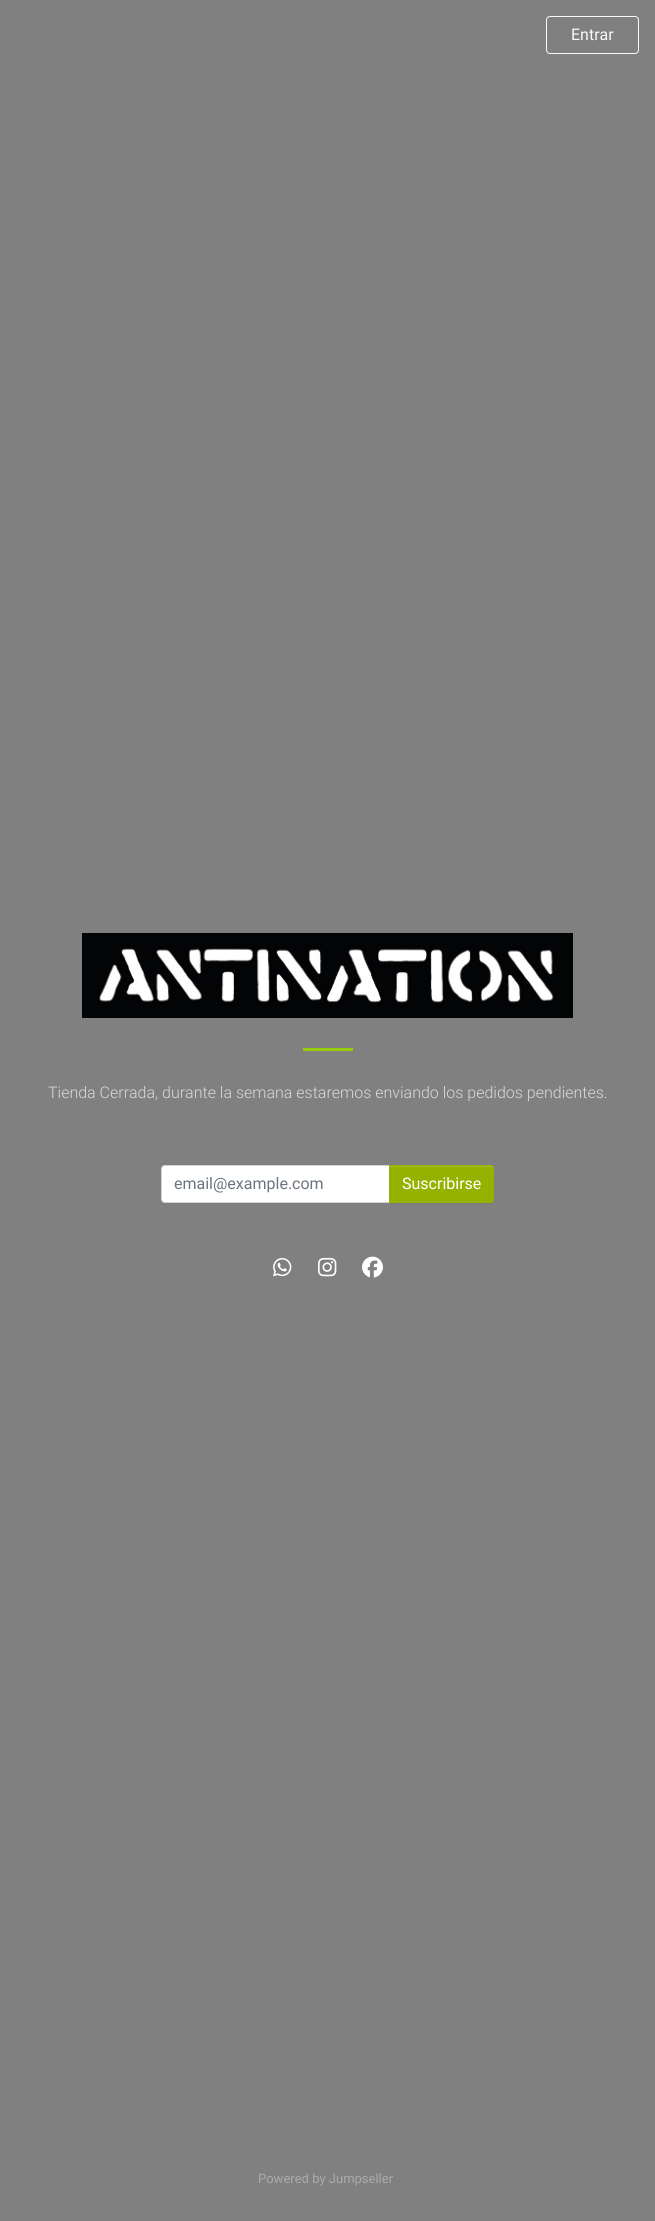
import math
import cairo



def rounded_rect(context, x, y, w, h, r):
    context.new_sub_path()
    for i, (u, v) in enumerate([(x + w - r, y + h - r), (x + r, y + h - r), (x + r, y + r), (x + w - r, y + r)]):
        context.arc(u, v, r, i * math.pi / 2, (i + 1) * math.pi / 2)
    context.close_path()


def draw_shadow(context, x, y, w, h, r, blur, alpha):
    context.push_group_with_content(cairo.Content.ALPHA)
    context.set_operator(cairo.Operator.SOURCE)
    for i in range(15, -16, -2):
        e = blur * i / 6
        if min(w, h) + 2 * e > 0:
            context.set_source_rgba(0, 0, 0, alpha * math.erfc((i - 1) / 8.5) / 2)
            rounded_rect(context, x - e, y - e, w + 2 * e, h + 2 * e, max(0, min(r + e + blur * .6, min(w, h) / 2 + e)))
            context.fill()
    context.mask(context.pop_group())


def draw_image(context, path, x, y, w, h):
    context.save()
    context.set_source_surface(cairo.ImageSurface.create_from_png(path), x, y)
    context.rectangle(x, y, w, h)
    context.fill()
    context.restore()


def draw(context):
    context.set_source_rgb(128 / 255, 128 / 255, 128 / 255)
    context.paint()
    rounded_rect(context, 546.5, 16.5, 92, 37, 3.5)
    context.set_source_rgb(248 / 255, 249 / 255, 250 / 255)
    context.set_line_width(1)
    context.stroke()
    draw_image(context, "images/1.png", 82, 933, 491, 85)
    context.set_source_rgb(153 / 255, 204 / 255, 0)
    context.rectangle(303, 1048, 50, 3)
    context.fill()
    context.set_source_rgb(1, 1, 1)
    context.new_path()
    context.move_to(165, 1165.5)
    context.line_to(389.5, 1165.5)
    context.line_to(389.5, 1202.5)
    context.line_to(165, 1202.5)
    context.curve_to(163, 1202.5, 161.5, 1201, 161.5, 1199)
    context.line_to(161.5, 1169)
    context.curve_to(161.5, 1167, 163, 1165.5, 165, 1165.5)
    context.close_path()
    context.fill_preserve()
    context.set_source_rgb(206 / 255, 212 / 255, 218 / 255)
    context.stroke()
    context.set_source_rgb(0, 0, 0)
    draw_shadow(context, 389, 1166, 105, 38, 4, 0.5, 0.07)
    context.set_source_rgb(149 / 255, 178 / 255, 0)
    context.new_path()
    context.move_to(389, 1165)
    context.line_to(490, 1165)
    context.curve_to(492, 1165, 494, 1167, 494, 1169)
    context.line_to(494, 1199)
    context.curve_to(494, 1201, 492, 1203, 490, 1203)
    context.line_to(389, 1203)
    context.close_path()
    context.fill()
    context.set_source_rgb(165 / 255, 190 / 255, 38 / 255)
    context.new_path()
    context.move_to(390, 1167)
    context.line_to(490, 1167)
    context.curve_to(492, 1167, 493, 1168, 493, 1170)
    context.line_to(493, 1169)
    context.curve_to(493, 1167, 492, 1166, 490, 1166)
    context.line_to(390, 1166)
    context.close_path()
    context.fill()
    context.new_path()
    context.move_to(389.5, 1165.5)
    context.line_to(490, 1165.5)
    context.curve_to(492, 1165.5, 493.5, 1167, 493.5, 1169)
    context.line_to(493.5, 1199)
    context.curve_to(493.5, 1201, 492, 1202.5, 490, 1202.5)
    context.line_to(389.5, 1202.5)
    context.close_path()
    context.set_source_rgb(149 / 255, 178 / 255, 0)
    context.stroke()
    draw_image(context, "images/2.png", 273, 1258, 19, 19)
    draw_image(context, "images/3.png", 318, 1257, 19, 20)
    draw_image(context, "images/4.png", 362, 1256, 21, 22)
    context.select_font_face("Roboto")
    context.set_font_size(16)
    context.set_source_rgb(248 / 255, 249 / 255, 250 / 255)
    context.move_to(571, 40)
    context.show_text("Entrar")
    context.select_font_face("Roboto Light")
    context.set_source_rgb(217 / 255, 217 / 255, 217 / 255)
    context.move_to(48, 1098)
    context.show_text("Tienda Cerrada, durante la semana estaremos enviando los pedidos pendientes.")
    context.select_font_face("Roboto")
    context.set_source_rgb(108 / 255, 117 / 255, 125 / 255)
    context.move_to(174, 1189)
    context.show_text("email@example.com")
    context.set_source_rgb(1, 1, 1)
    context.move_to(402, 1189)
    context.show_text("Suscribirse")
    context.set_font_size(13)
    context.set_source_rgb(170 / 255, 170 / 255, 170 / 255)
    context.move_to(258, 2183)
    context.show_text("Powered by Jumpseller")


surface = cairo.ImageSurface(cairo.Format.RGB24, 655, 2221)
context = cairo.Context(surface)
options = cairo.FontOptions()
options.set_hint_metrics(cairo.HintMetrics.OFF)
options.set_hint_style(cairo.HintStyle.NONE)
context.set_font_options(options)
context.set_miter_limit(4)
draw(context)
surface.write_to_png("out.png")
